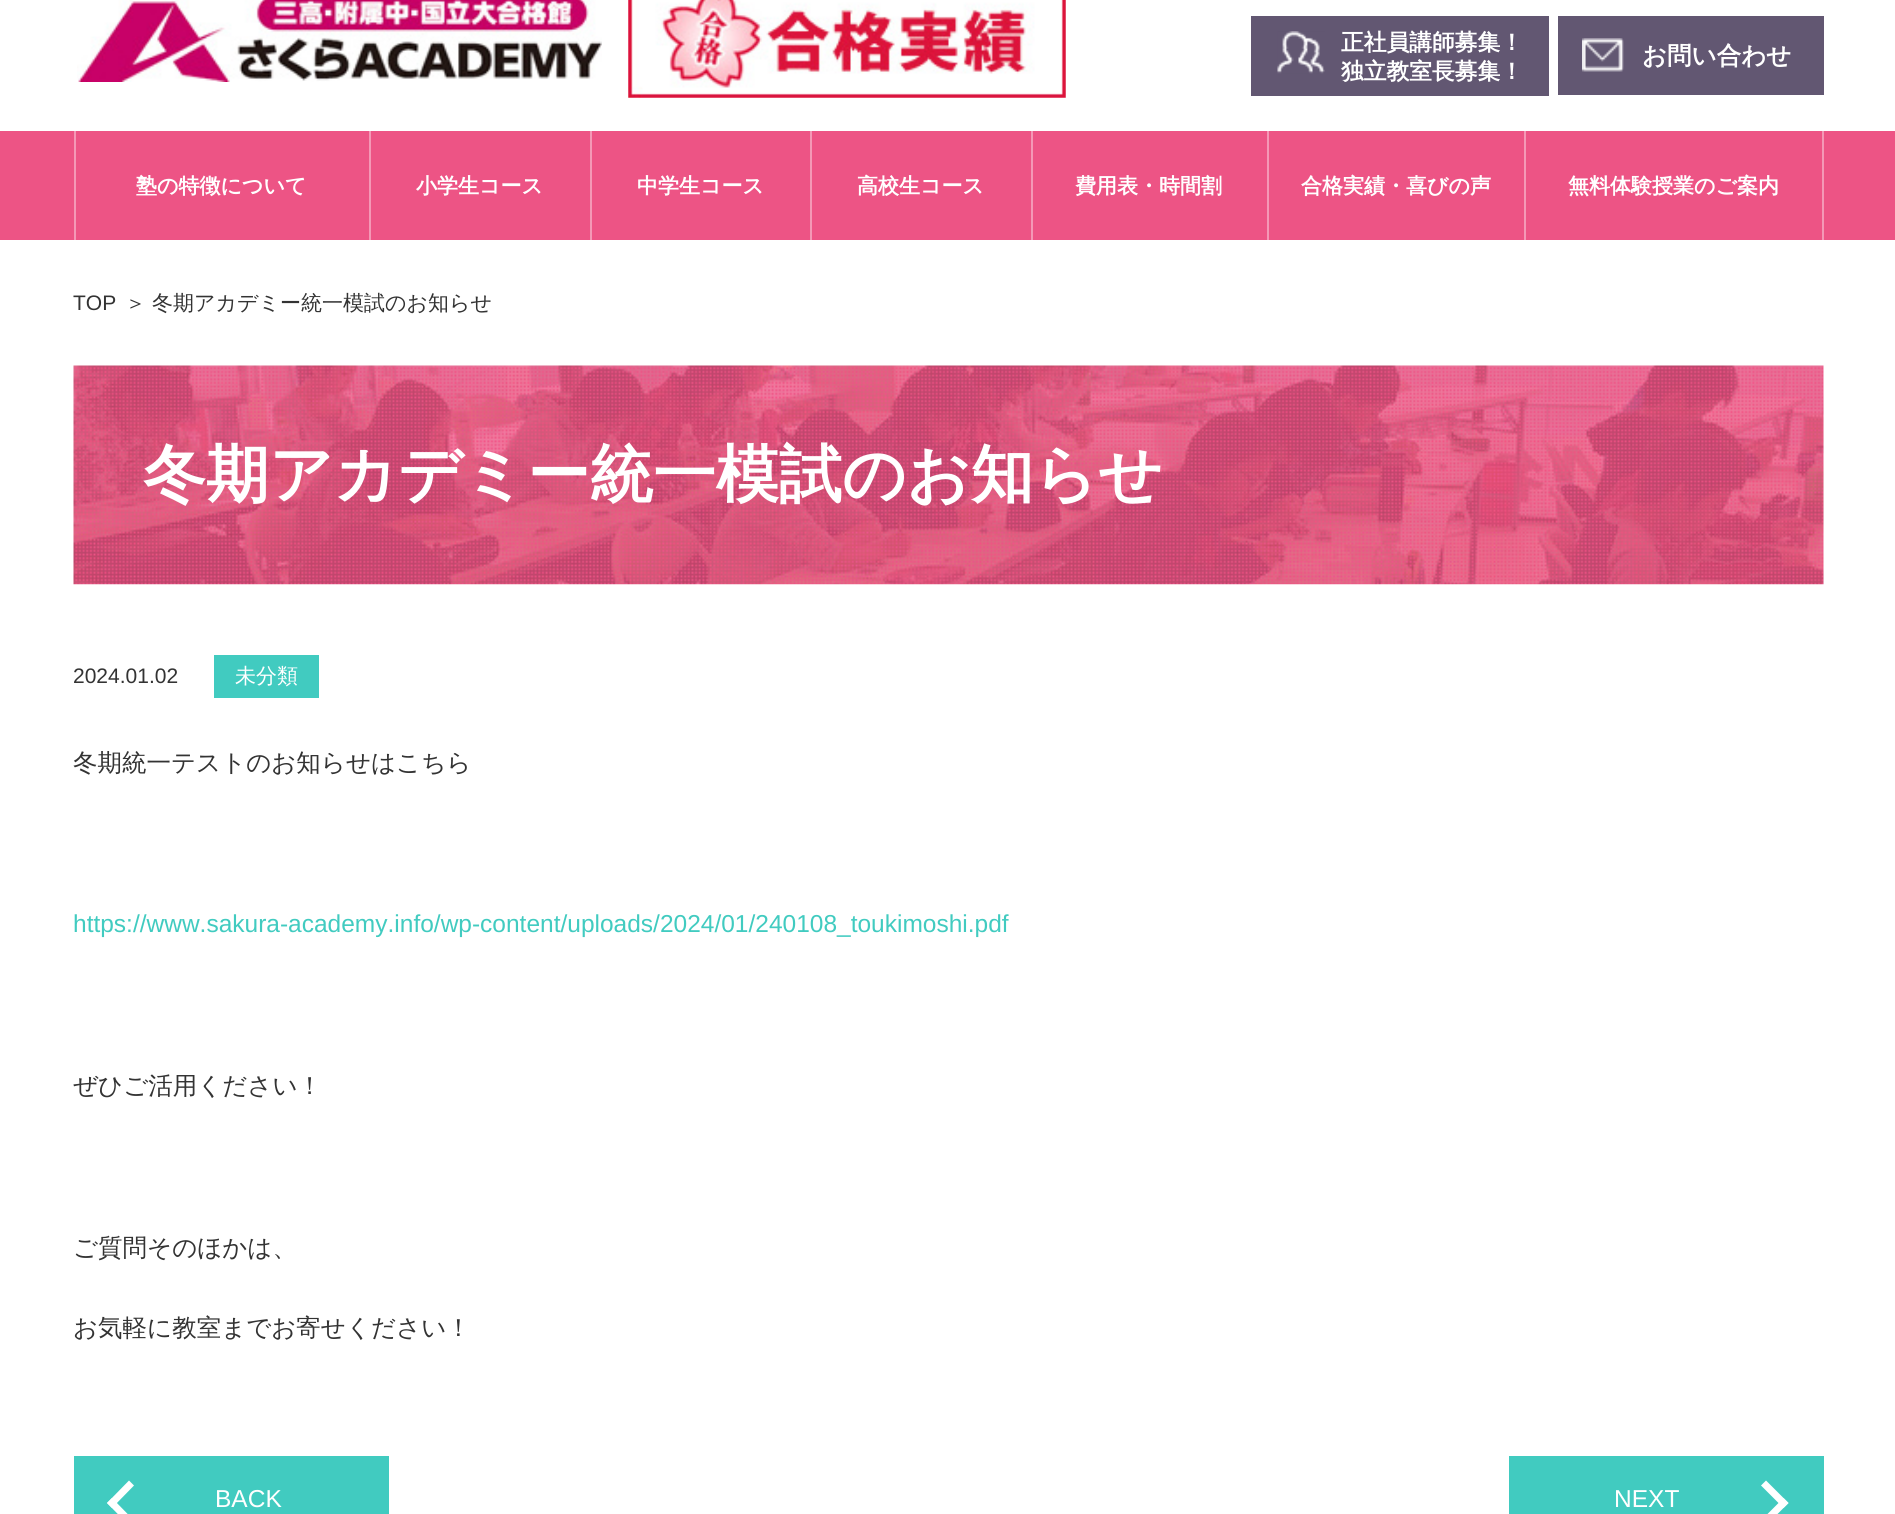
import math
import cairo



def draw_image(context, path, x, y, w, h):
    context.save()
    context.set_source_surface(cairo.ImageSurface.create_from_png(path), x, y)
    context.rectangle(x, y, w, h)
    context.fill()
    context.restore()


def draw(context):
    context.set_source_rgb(1, 1, 1)
    context.paint()
    draw_image(context, "images/1.png", 77, 0, 525, 82)
    draw_image(context, "images/2.png", 628, 0, 438, 98)
    context.set_source_rgb(98 / 255, 87 / 255, 114 / 255)
    context.rectangle(1251, 16, 298, 80)
    context.fill()
    draw_image(context, "images/3.png", 1277, 31, 48, 43)
    context.rectangle(1558, 16, 266, 79)
    context.fill()
    draw_image(context, "images/4.png", 1582, 38, 42, 34)
    context.set_source_rgb(237 / 255, 84 / 255, 133 / 255)
    context.rectangle(0, 131, 1895, 109)
    context.fill()
    context.set_source_rgb(244 / 255, 152 / 255, 182 / 255)
    context.rectangle(74, 131, 2, 109)
    context.fill()
    context.rectangle(369, 131, 2, 109)
    context.fill()
    context.rectangle(590, 131, 2, 109)
    context.fill()
    context.rectangle(810, 131, 2, 109)
    context.fill()
    context.rectangle(1031, 131, 2, 109)
    context.fill()
    context.rectangle(1267, 131, 2, 109)
    context.fill()
    context.rectangle(1524, 131, 2, 109)
    context.fill()
    context.rectangle(1822, 131, 2, 109)
    context.fill()
    draw_image(context, "images/5.png", 73, 365, 1751, 220)
    context.set_source_rgb(65 / 255, 203 / 255, 192 / 255)
    context.rectangle(214, 655, 105, 43)
    context.fill()
    context.rectangle(74, 1456, 315, 58)
    context.fill()
    context.set_source_rgb(1, 1, 1)
    context.new_path()
    context.move_to(107, 1503)
    context.line_to(129, 1480.5)
    context.line_to(134, 1485.5)
    context.line_to(112, 1508)
    context.close_path()
    context.fill()
    context.new_path()
    context.move_to(107, 1503)
    context.line_to(112, 1498)
    context.line_to(134, 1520.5)
    context.line_to(129, 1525.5)
    context.close_path()
    context.fill()
    context.set_source_rgb(65 / 255, 203 / 255, 192 / 255)
    context.rectangle(1509, 1456, 315, 58)
    context.fill()
    context.set_source_rgb(1, 1, 1)
    context.new_path()
    context.move_to(1788.5, 1503)
    context.line_to(1766, 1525.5)
    context.line_to(1761, 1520.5)
    context.line_to(1783.5, 1498)
    context.close_path()
    context.fill()
    context.new_path()
    context.move_to(1788.5, 1503)
    context.line_to(1783.5, 1508)
    context.line_to(1761, 1485.5)
    context.line_to(1766, 1480.5)
    context.close_path()
    context.fill()
    context.select_font_face("WenQuanYi Zen Hei", cairo.FontSlant.NORMAL, cairo.FontWeight.BOLD)
    context.set_font_size(22.75)
    context.move_to(1341, 50)
    context.show_text("正社員講師募集！")
    context.move_to(1341, 79)
    context.show_text("独立教室長募集！")
    context.set_font_size(24.5)
    context.move_to(1642, 64)
    context.show_text("お問い合わせ")
    context.set_font_size(21)
    context.move_to(136, 193)
    context.show_text("塾の特徴について")
    context.move_to(416, 193)
    context.show_text("小学生コース")
    context.move_to(637, 193)
    context.show_text("中学生コース")
    context.move_to(857, 193)
    context.show_text("高校生コース")
    context.move_to(1075, 193)
    context.show_text("費用表・時間割")
    context.move_to(1301, 193)
    context.show_text("合格実績・喜びの声")
    context.move_to(1568, 193)
    context.show_text("無料体験授業のご案内")
    context.select_font_face("Liberation Sans")
    context.set_source_rgb(51 / 255, 51 / 255, 51 / 255)
    context.move_to(73, 310)
    context.show_text("TOP")
    context.select_font_face("WenQuanYi Zen Hei Medium")
    context.move_to(125, 310)
    context.show_text("＞")
    context.move_to(152, 310)
    context.show_text("冬期アカデミー統一模試のお知らせ")
    context.select_font_face("WenQuanYi Zen Hei", cairo.FontSlant.NORMAL, cairo.FontWeight.BOLD)
    context.set_font_size(63)
    context.set_source_rgb(1, 1, 1)
    context.move_to(143, 496)
    context.show_text("冬期アカデミー統一模試のお知らせ")
    context.select_font_face("Liberation Sans")
    context.set_font_size(21)
    context.set_source_rgb(51 / 255, 51 / 255, 51 / 255)
    context.move_to(73, 683)
    context.show_text("2024.01.02")
    context.select_font_face("WenQuanYi Zen Hei Medium")
    context.set_source_rgb(1, 1, 1)
    context.move_to(235, 683)
    context.show_text("未分類")
    context.set_font_size(24.5)
    context.set_source_rgb(51 / 255, 51 / 255, 51 / 255)
    context.move_to(73, 771)
    context.show_text("冬期統一テストのお知らせはこちら")
    context.select_font_face("Liberation Sans")
    context.set_source_rgb(65 / 255, 203 / 255, 192 / 255)
    context.move_to(73, 932)
    context.show_text("https://www.sakura-academy.info/wp-content/uploads/2024/01/240108_toukimoshi.pdf")
    context.select_font_face("WenQuanYi Zen Hei Medium")
    context.set_source_rgb(51 / 255, 51 / 255, 51 / 255)
    context.move_to(73, 1094)
    context.show_text("ぜひご活用ください！")
    context.move_to(73, 1256)
    context.show_text("ご質問そのほかは、")
    context.move_to(73, 1336)
    context.show_text("お気軽に教室までお寄せください！")
    context.select_font_face("Liberation Sans")
    context.set_source_rgb(1, 1, 1)
    context.move_to(215, 1507)
    context.show_text("BACK")
    context.move_to(1614, 1507)
    context.show_text("NEXT")


surface = cairo.ImageSurface(cairo.Format.RGB24, 1895, 1514)
context = cairo.Context(surface)
options = cairo.FontOptions()
options.set_hint_metrics(cairo.HintMetrics.OFF)
options.set_hint_style(cairo.HintStyle.NONE)
context.set_font_options(options)
context.set_miter_limit(4)
draw(context)
surface.write_to_png("out.png")
